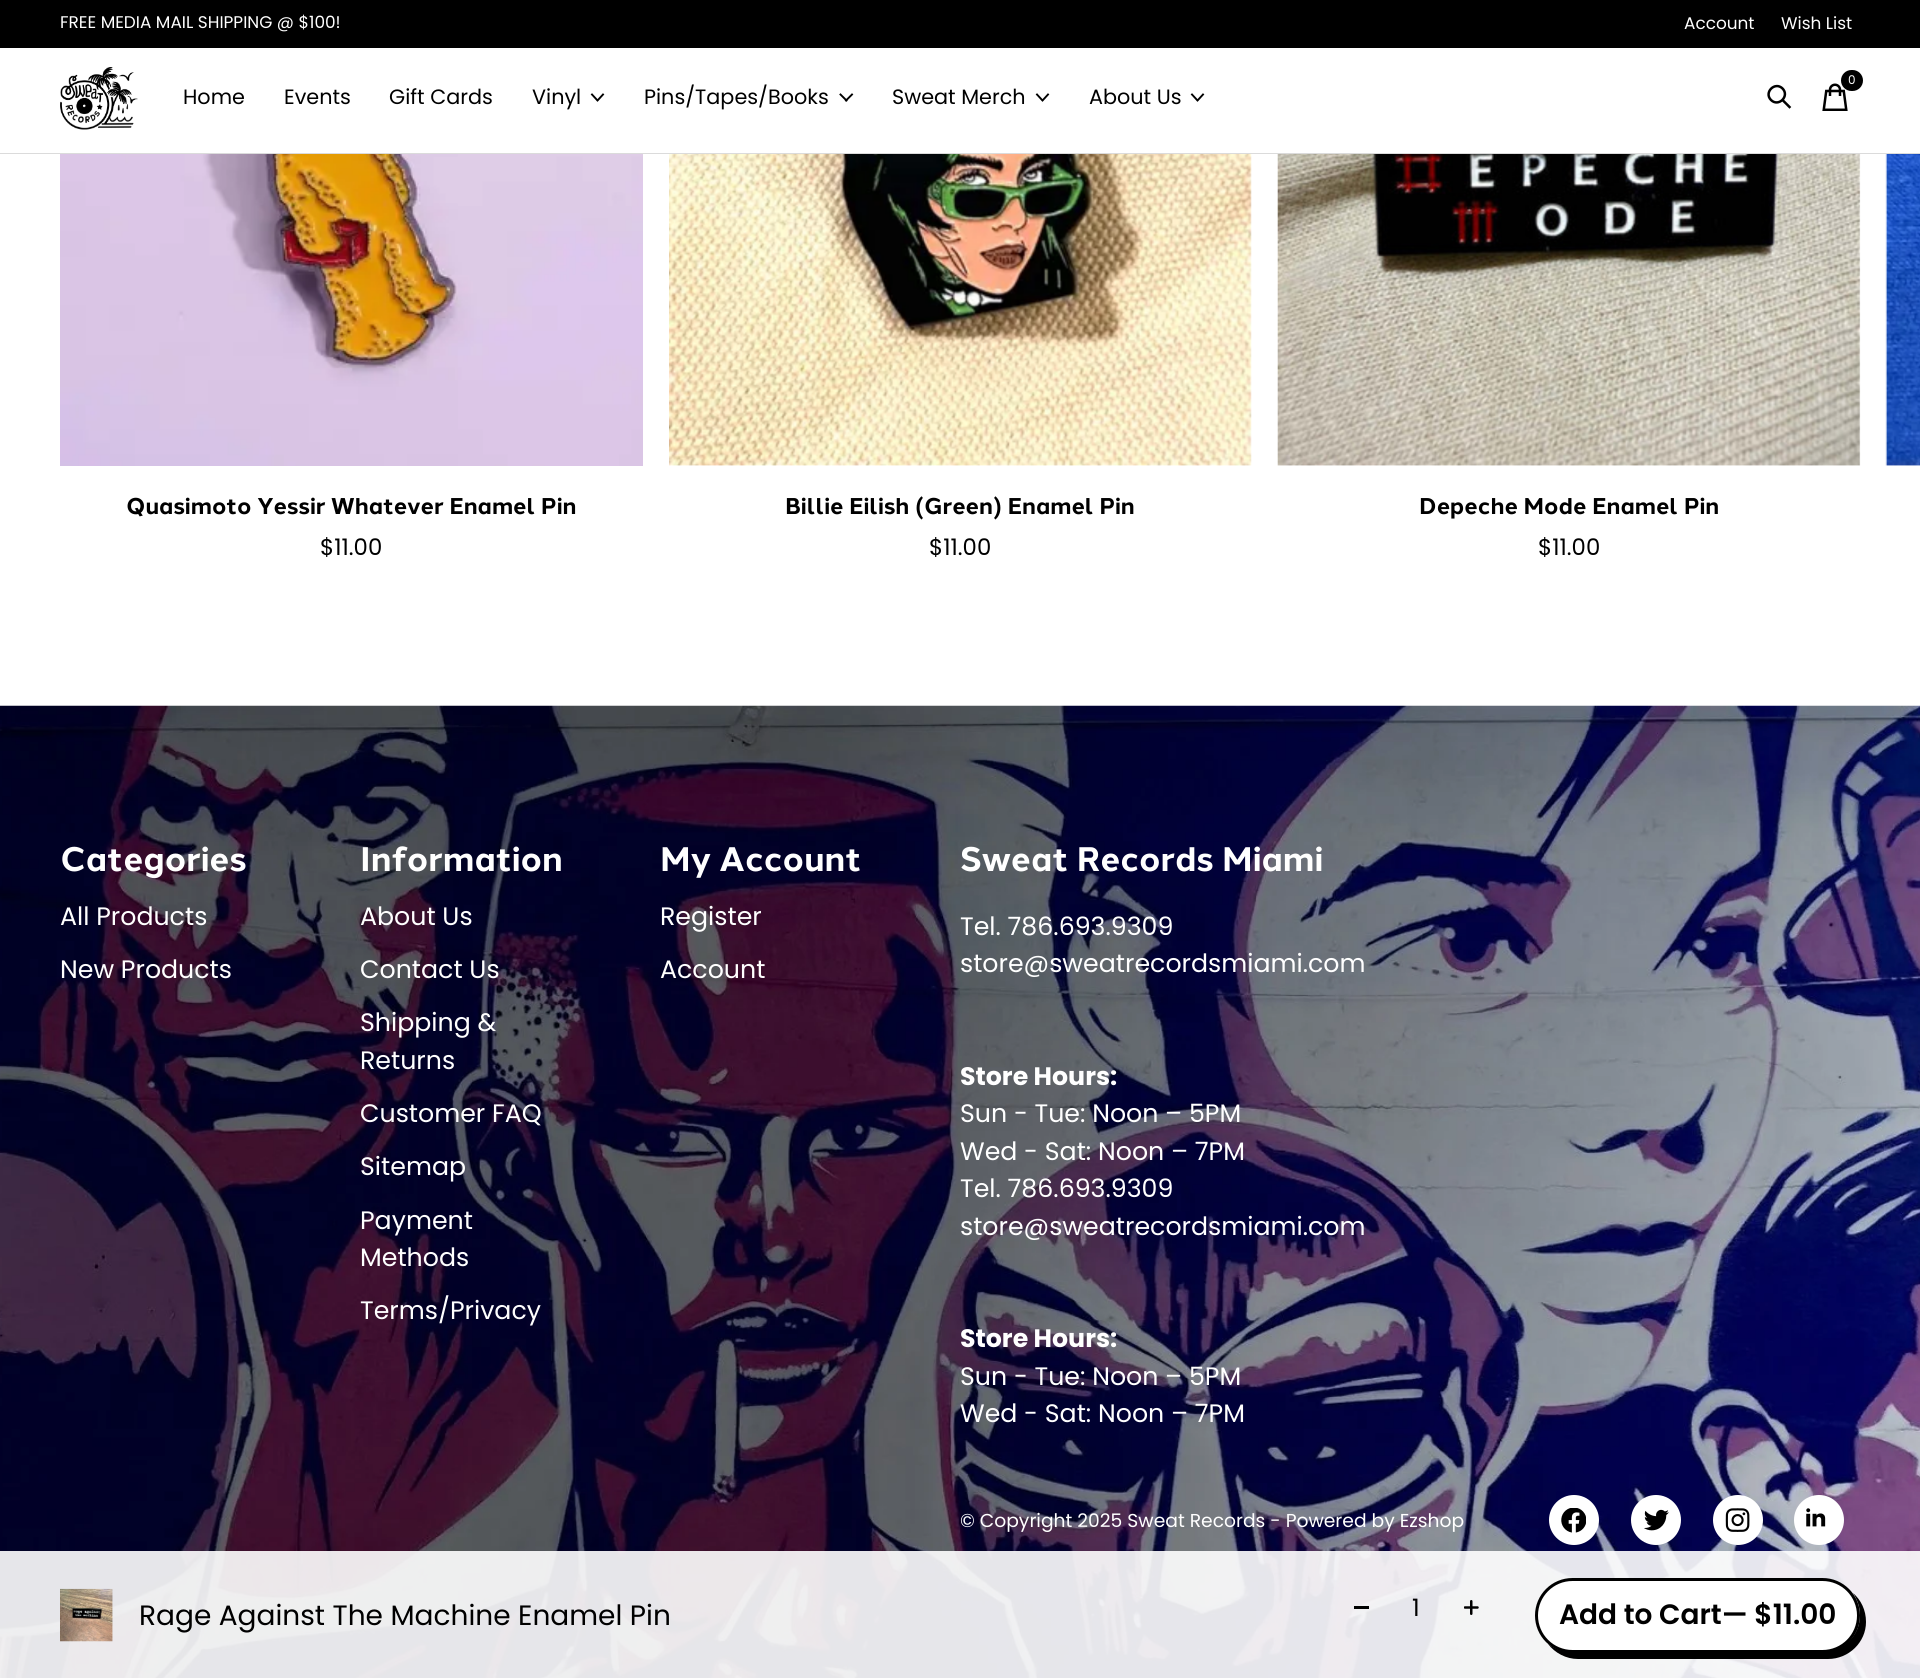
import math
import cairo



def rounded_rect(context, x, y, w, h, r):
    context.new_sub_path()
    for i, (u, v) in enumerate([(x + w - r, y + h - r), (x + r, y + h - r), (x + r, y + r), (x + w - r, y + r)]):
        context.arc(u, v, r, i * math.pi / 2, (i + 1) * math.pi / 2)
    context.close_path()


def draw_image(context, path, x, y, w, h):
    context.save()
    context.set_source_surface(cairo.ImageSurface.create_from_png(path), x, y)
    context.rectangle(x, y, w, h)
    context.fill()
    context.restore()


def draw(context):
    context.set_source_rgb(1, 1, 1)
    context.paint()
    context.set_source_rgb(0, 0, 0)
    context.rectangle(0, 0, 1920, 48)
    context.fill()
    context.set_source_rgb(219 / 255, 219 / 255, 219 / 255)
    context.rectangle(0, 153, 1920, 1)
    context.fill()
    draw_image(context, "images/1.png", 60, 67, 78, 63)
    draw_image(context, "images/2.png", 1822, 83, 26, 28)
    context.set_source_rgb(0, 0, 0)
    rounded_rect(context, 1841, 70, 22, 21, 10.5)
    context.fill()
    context.new_path()
    context.move_to(1782.5, 100)
    context.line_to(1789.5, 107)
    context.move_to(1782.5, 88.5)
    context.curve_to(1790, 96, 1778.5, 107.5, 1771, 100)
    context.curve_to(1763.5, 92.5, 1775, 81, 1782.5, 88.5)
    context.set_line_width(2.5)
    context.set_line_cap(cairo.LineCap.SQUARE)
    context.stroke()
    context.new_path()
    context.move_to(592, 94.5)
    context.line_to(597.5, 100.5)
    context.move_to(603, 94.5)
    context.line_to(597.5, 100.5)
    context.set_line_width(1.9)
    context.stroke()
    context.new_path()
    context.move_to(840.5, 94.5)
    context.line_to(846.5, 100.5)
    context.move_to(852, 94.5)
    context.line_to(846, 100.5)
    context.stroke()
    context.new_path()
    context.move_to(1037, 94.5)
    context.line_to(1042.5, 100.5)
    context.move_to(1048, 94.5)
    context.line_to(1042.5, 100.5)
    context.stroke()
    context.new_path()
    context.move_to(1192, 94.5)
    context.line_to(1197.5, 100.5)
    context.move_to(1203, 94.5)
    context.line_to(1197.5, 100.5)
    context.stroke()
    draw_image(context, "images/3.png", 1885, 154, 35, 312)
    draw_image(context, "images/4.png", 60, 154, 583, 312)
    draw_image(context, "images/5.png", 669, 154, 583, 312)
    draw_image(context, "images/6.png", 1277, 154, 584, 312)
    draw_image(context, "images/7.png", 0, 705, 1920, 973)
    context.set_source_rgb(1, 1, 1)
    context.arc(1574, 1520, 25, 0, 2 * math.pi)
    context.fill()
    draw_image(context, "images/8.png", 1561, 1508, 25, 25)
    context.arc(1656, 1520, 25, 0, 2 * math.pi)
    context.fill()
    draw_image(context, "images/9.png", 1644, 1509, 25, 22)
    context.arc(1738, 1520, 25, 0, 2 * math.pi)
    context.fill()
    draw_image(context, "images/10.png", 1725, 1508, 25, 24)
    context.arc(1819, 1520, 25, 0, 2 * math.pi)
    context.fill()
    draw_image(context, "images/11.png", 1806, 1508, 20, 19)
    context.set_source_rgba(1, 1, 1, 0.9)
    context.rectangle(0, 1551, 1920, 127)
    context.fill()
    draw_image(context, "images/12.png", 60, 1588, 53, 54)
    context.set_source_rgb(0, 0, 0)
    context.rectangle(1354, 1606, 15, 3)
    context.fill()
    draw_image(context, "images/13.png", 1464, 1600, 15, 15)
    context.new_path()
    context.move_to(1548, 1644)
    context.curve_to(1555, 1653, 1566, 1659, 1578, 1659)
    context.line_to(1828, 1659)
    context.curve_to(1849, 1659, 1866, 1642, 1866, 1622)
    context.curve_to(1866, 1610, 1861, 1600, 1853, 1593)
    context.curve_to(1857, 1599, 1860, 1607, 1860, 1615)
    context.curve_to(1860, 1636, 1843, 1652, 1822, 1652)
    context.line_to(1572, 1652)
    context.curve_to(1563, 1652, 1555, 1649, 1548, 1644)
    context.close_path()
    context.fill()
    context.set_source_rgb(1, 1, 1)
    rounded_rect(context, 1536.5, 1579.5, 322, 72, 36)
    context.fill_preserve()
    context.set_source_rgb(0, 0, 0)
    context.set_line_width(3)
    context.set_line_cap(cairo.LineCap.BUTT)
    context.stroke()
    context.select_font_face("Poppins")
    context.set_font_size(16.9)
    context.set_source_rgb(1, 1, 1)
    context.move_to(60, 28)
    context.show_text("FREE MEDIA MAIL SHIPPING @ $100!")
    context.move_to(1684, 29)
    context.show_text("Account")
    context.move_to(1781, 29)
    context.show_text("Wish List")
    context.set_font_size(12)
    context.move_to(1848, 84)
    context.show_text("0")
    context.set_font_size(20.75)
    context.set_source_rgb(0, 0, 0)
    context.move_to(183, 104)
    context.show_text("Home")
    context.move_to(284, 104)
    context.show_text("Events")
    context.move_to(389, 104)
    context.show_text("Gift Cards")
    context.move_to(532, 104)
    context.show_text("Vinyl")
    context.move_to(644, 104)
    context.show_text("Pins/Tapes/Books")
    context.move_to(892, 104)
    context.show_text("Sweat Merch")
    context.move_to(1089, 104)
    context.show_text("About Us")
    context.select_font_face("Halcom", cairo.FontSlant.NORMAL, cairo.FontWeight.BOLD)
    context.set_font_size(22.8)
    context.move_to(126, 514)
    context.show_text("Quasimoto Yessir Whatever Enamel Pin")
    context.select_font_face("Poppins")
    context.move_to(320, 555)
    context.show_text("$11.00")
    context.select_font_face("Halcom", cairo.FontSlant.NORMAL, cairo.FontWeight.BOLD)
    context.move_to(785, 514)
    context.show_text("Billie Eilish (Green) Enamel Pin")
    context.select_font_face("Poppins")
    context.move_to(929, 555)
    context.show_text("$11.00")
    context.select_font_face("Halcom", cairo.FontSlant.NORMAL, cairo.FontWeight.BOLD)
    context.move_to(1419, 514)
    context.show_text("Depeche Mode Enamel Pin")
    context.select_font_face("Poppins")
    context.move_to(1538, 555)
    context.show_text("$11.00")
    context.select_font_face("Halcom", cairo.FontSlant.NORMAL, cairo.FontWeight.BOLD)
    context.set_font_size(34)
    context.set_source_rgb(1, 1, 1)
    context.move_to(60, 871)
    context.show_text("Categories")
    context.select_font_face("Poppins")
    context.set_font_size(25.25)
    context.move_to(60, 925)
    context.show_text("All Products")
    context.move_to(60, 978)
    context.show_text("New Products")
    context.select_font_face("Halcom", cairo.FontSlant.NORMAL, cairo.FontWeight.BOLD)
    context.set_font_size(34)
    context.move_to(360, 871)
    context.show_text("Information")
    context.select_font_face("Poppins")
    context.set_font_size(25.25)
    context.move_to(360, 925)
    context.show_text("About Us")
    context.move_to(360, 978)
    context.show_text("Contact Us")
    context.move_to(360, 1031)
    context.show_text("Shipping &")
    context.move_to(360, 1069)
    context.show_text("Returns")
    context.move_to(360, 1122)
    context.show_text("Customer FAQ")
    context.move_to(360, 1175)
    context.show_text("Sitemap")
    context.move_to(360, 1229)
    context.show_text("Payment")
    context.move_to(360, 1266)
    context.show_text("Methods")
    context.move_to(360, 1319)
    context.show_text("Terms/Privacy")
    context.select_font_face("Halcom", cairo.FontSlant.NORMAL, cairo.FontWeight.BOLD)
    context.set_font_size(34)
    context.move_to(660, 871)
    context.show_text("My Account")
    context.select_font_face("Poppins")
    context.set_font_size(25.25)
    context.move_to(660, 925)
    context.show_text("Register")
    context.move_to(660, 978)
    context.show_text("Account")
    context.select_font_face("Halcom", cairo.FontSlant.NORMAL, cairo.FontWeight.BOLD)
    context.set_font_size(34)
    context.move_to(960, 871)
    context.show_text("Sweat Records Miami")
    context.select_font_face("Poppins")
    context.set_font_size(25.25)
    context.move_to(960, 935)
    context.show_text("Tel. 786.693.9309")
    context.move_to(960, 972)
    context.show_text("store@sweatrecordsmiami.com")
    context.select_font_face("Poppins", cairo.FontSlant.NORMAL, cairo.FontWeight.BOLD)
    context.move_to(960, 1085)
    context.show_text("Store Hours:")
    context.select_font_face("Poppins")
    context.move_to(960, 1122)
    context.show_text("Sun - Tue: Noon – 5PM")
    context.move_to(960, 1160)
    context.show_text("Wed - Sat: Noon – 7PM")
    context.move_to(960, 1197)
    context.show_text("Tel. 786.693.9309")
    context.move_to(960, 1235)
    context.show_text("store@sweatrecordsmiami.com")
    context.select_font_face("Poppins", cairo.FontSlant.NORMAL, cairo.FontWeight.BOLD)
    context.move_to(960, 1347)
    context.show_text("Store Hours:")
    context.select_font_face("Poppins")
    context.move_to(960, 1385)
    context.show_text("Sun - Tue: Noon – 5PM")
    context.move_to(960, 1422)
    context.show_text("Wed - Sat: Noon – 7PM")
    context.set_font_size(18.7)
    context.move_to(960, 1527)
    context.show_text("© Copyright 2025 Sweat Records - Powered by Ezshop")
    context.set_font_size(28)
    context.set_source_rgb(0, 0, 0)
    context.move_to(139, 1625)
    context.show_text("Rage Against The Machine Enamel Pin")
    context.set_font_size(24)
    context.move_to(1412, 1616)
    context.show_text("1")
    context.select_font_face("Poppins SemiBold")
    context.set_font_size(28)
    context.move_to(1559, 1624)
    context.show_text("Add to Cart— $11.00")


surface = cairo.ImageSurface(cairo.Format.RGB24, 1920, 1678)
context = cairo.Context(surface)
options = cairo.FontOptions()
options.set_hint_metrics(cairo.HintMetrics.OFF)
options.set_hint_style(cairo.HintStyle.NONE)
context.set_font_options(options)
context.set_miter_limit(4)
draw(context)
surface.write_to_png("out.png")
